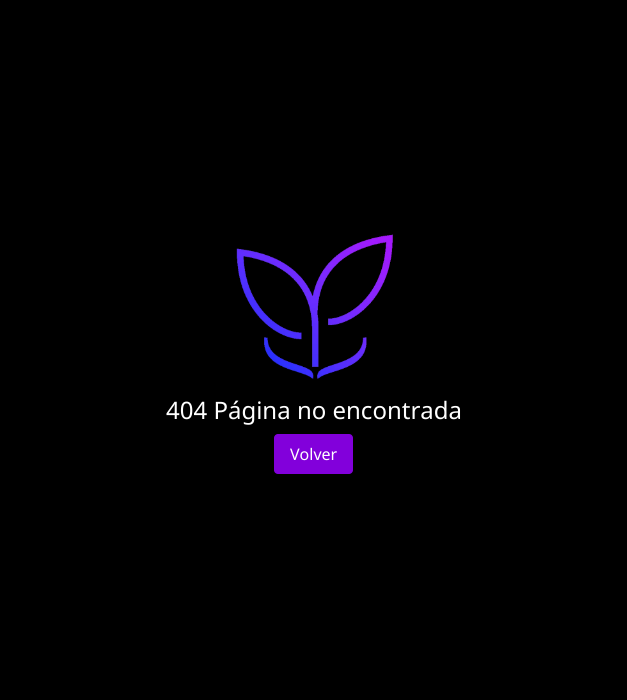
import math
import cairo



def rounded_rect(context, x, y, w, h, r):
    context.new_sub_path()
    for i, (u, v) in enumerate([(x + w - r, y + h - r), (x + r, y + h - r), (x + r, y + r), (x + w - r, y + r)]):
        context.arc(u, v, r, i * math.pi / 2, (i + 1) * math.pi / 2)
    context.close_path()


def draw_image(context, path, x, y, w, h):
    context.save()
    context.set_source_surface(cairo.ImageSurface.create_from_png(path), x, y)
    context.rectangle(x, y, w, h)
    context.fill()
    context.restore()


def draw(context):
    context.set_source_rgb(0, 0, 0)
    context.paint()
    draw_image(context, "images/1.png", 236, 234, 157, 145)
    context.set_source_rgb(130 / 255, 0, 219 / 255)
    rounded_rect(context, 274, 434, 79, 40, 4)
    context.fill()
    context.select_font_face("Noto Sans")
    context.set_font_size(24)
    context.set_source_rgb(1, 1, 1)
    context.move_to(166, 419)
    context.show_text("404 Página no encontrada")
    context.set_font_size(16)
    context.move_to(290, 460)
    context.show_text("Volver")


surface = cairo.ImageSurface(cairo.Format.RGB24, 627, 700)
context = cairo.Context(surface)
options = cairo.FontOptions()
options.set_hint_metrics(cairo.HintMetrics.OFF)
options.set_hint_style(cairo.HintStyle.NONE)
context.set_font_options(options)
context.set_miter_limit(4)
draw(context)
surface.write_to_png("out.png")
